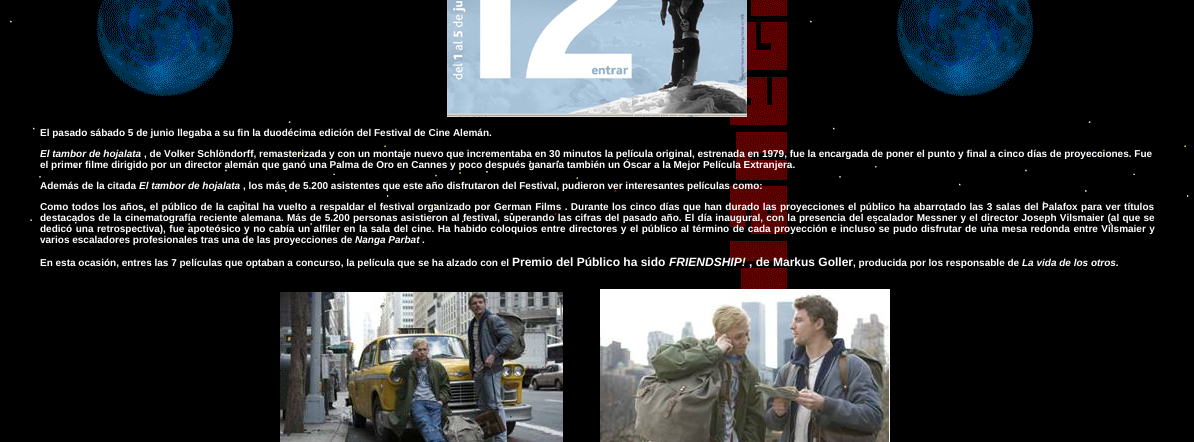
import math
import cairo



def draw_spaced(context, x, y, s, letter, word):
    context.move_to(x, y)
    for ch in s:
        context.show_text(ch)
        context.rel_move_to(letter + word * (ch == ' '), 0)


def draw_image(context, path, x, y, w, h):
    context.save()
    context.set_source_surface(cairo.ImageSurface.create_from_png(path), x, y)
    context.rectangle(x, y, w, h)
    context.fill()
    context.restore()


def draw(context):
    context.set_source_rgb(0, 0, 0)
    context.paint()
    draw_image(context, "images/1.png", 10, 0, 1179, 442)
    draw_image(context, "images/2.png", 447, 0, 300, 117)
    draw_image(context, "images/3.png", 280, 292, 283, 150)
    draw_image(context, "images/4.png", 600, 289, 290, 153)
    context.select_font_face("Liberation Sans", cairo.FontSlant.NORMAL, cairo.FontWeight.BOLD)
    context.set_font_size(10)
    context.set_source_rgb(1, 1, 1)
    context.move_to(40, 136)
    context.show_text("El pasado sábado 5 de junio llegaba a su fin la duodécima edición del Festival de Cine Alemán.")
    context.select_font_face("Liberation Sans", cairo.FontSlant.ITALIC, cairo.FontWeight.BOLD)
    context.move_to(40, 157)
    context.show_text("El tambor de hojalata")
    context.select_font_face("Liberation Sans", cairo.FontSlant.NORMAL, cairo.FontWeight.BOLD)
    context.move_to(144, 157)
    context.show_text(", de Volker Schlöndorff, remasterizada y con un montaje nuevo que incrementaba en 30 minutos la película original, estrenada en 1979, fue la encargada de poner el punto y final a cinco días de proyecciones. Fue")
    context.move_to(40, 168)
    context.show_text("el primer filme dirigido por un director alemán que ganó una Palma de Oro en Cannes y poco después ganaría también un Óscar a la Mejor Película Extranjera.")
    context.move_to(40, 189)
    context.show_text("Además de la citada")
    context.select_font_face("Liberation Sans", cairo.FontSlant.ITALIC, cairo.FontWeight.BOLD)
    context.move_to(139, 189)
    context.show_text("El tambor de hojalata")
    context.select_font_face("Liberation Sans", cairo.FontSlant.NORMAL, cairo.FontWeight.BOLD)
    context.move_to(243, 189)
    context.show_text(", los más de 5.200 asistentes que este año disfrutaron del Festival, pudieron ver interesantes películas como:")
    draw_spaced(context, 40, 210, "Como todos los años, el público de la capital ha vuelto a respaldar el festival organizado por German Films . Durante los cinco días que han durado las proyecciones el público ha abarrotado las 3 salas del Palafox para ver títulos", 0, 0.65)
    draw_spaced(context, 40, 221, "destacados de la cinematografía reciente alemana. Más de 5.200 personas asistieron al festival, superando las cifras del pasado año. El día inaugural, con la presencia del escalador Messner y el director Joseph Vilsmaier (al que se", 0, 0.5)
    draw_spaced(context, 40, 232, "dedicó una retrospectiva), fue apoteósico y no cabía un alfiler en la sala del cine. Ha habido coloquios entre directores y el público al término de cada proyección e incluso se pudo disfrutar de una mesa redonda entre Vilsmaier y", 0, 0.7)
    context.move_to(40, 243)
    context.show_text("varios escaladores profesionales tras una de las proyecciones de")
    context.select_font_face("Liberation Sans", cairo.FontSlant.ITALIC, cairo.FontWeight.BOLD)
    context.move_to(355, 243)
    context.show_text("Nanga Parbat")
    context.select_font_face("Liberation Sans", cairo.FontSlant.NORMAL, cairo.FontWeight.BOLD)
    context.move_to(422, 243)
    context.show_text(".")
    context.move_to(40, 266)
    context.show_text("En esta ocasión, entres las 7 películas que optaban a concurso, la película que se ha alzado con el")
    context.set_font_size(12)
    context.move_to(512, 266)
    context.show_text("Premio del Público ha sido")
    context.select_font_face("Liberation Sans", cairo.FontSlant.ITALIC, cairo.FontWeight.BOLD)
    context.move_to(669, 266)
    context.show_text("FRIENDSHIP!")
    context.select_font_face("Liberation Sans", cairo.FontSlant.NORMAL, cairo.FontWeight.BOLD)
    context.move_to(749, 266)
    context.show_text(", de Markus Goller")
    context.set_font_size(10)
    context.move_to(853, 266)
    context.show_text(", producida por los responsable de")
    context.select_font_face("Liberation Sans", cairo.FontSlant.ITALIC, cairo.FontWeight.BOLD)
    context.move_to(1022, 266)
    context.show_text("La vida de los otros.")


surface = cairo.ImageSurface(cairo.Format.RGB24, 1194, 442)
context = cairo.Context(surface)
options = cairo.FontOptions()
options.set_hint_metrics(cairo.HintMetrics.OFF)
options.set_hint_style(cairo.HintStyle.NONE)
context.set_font_options(options)
context.set_miter_limit(4)
draw(context)
surface.write_to_png("out.png")
